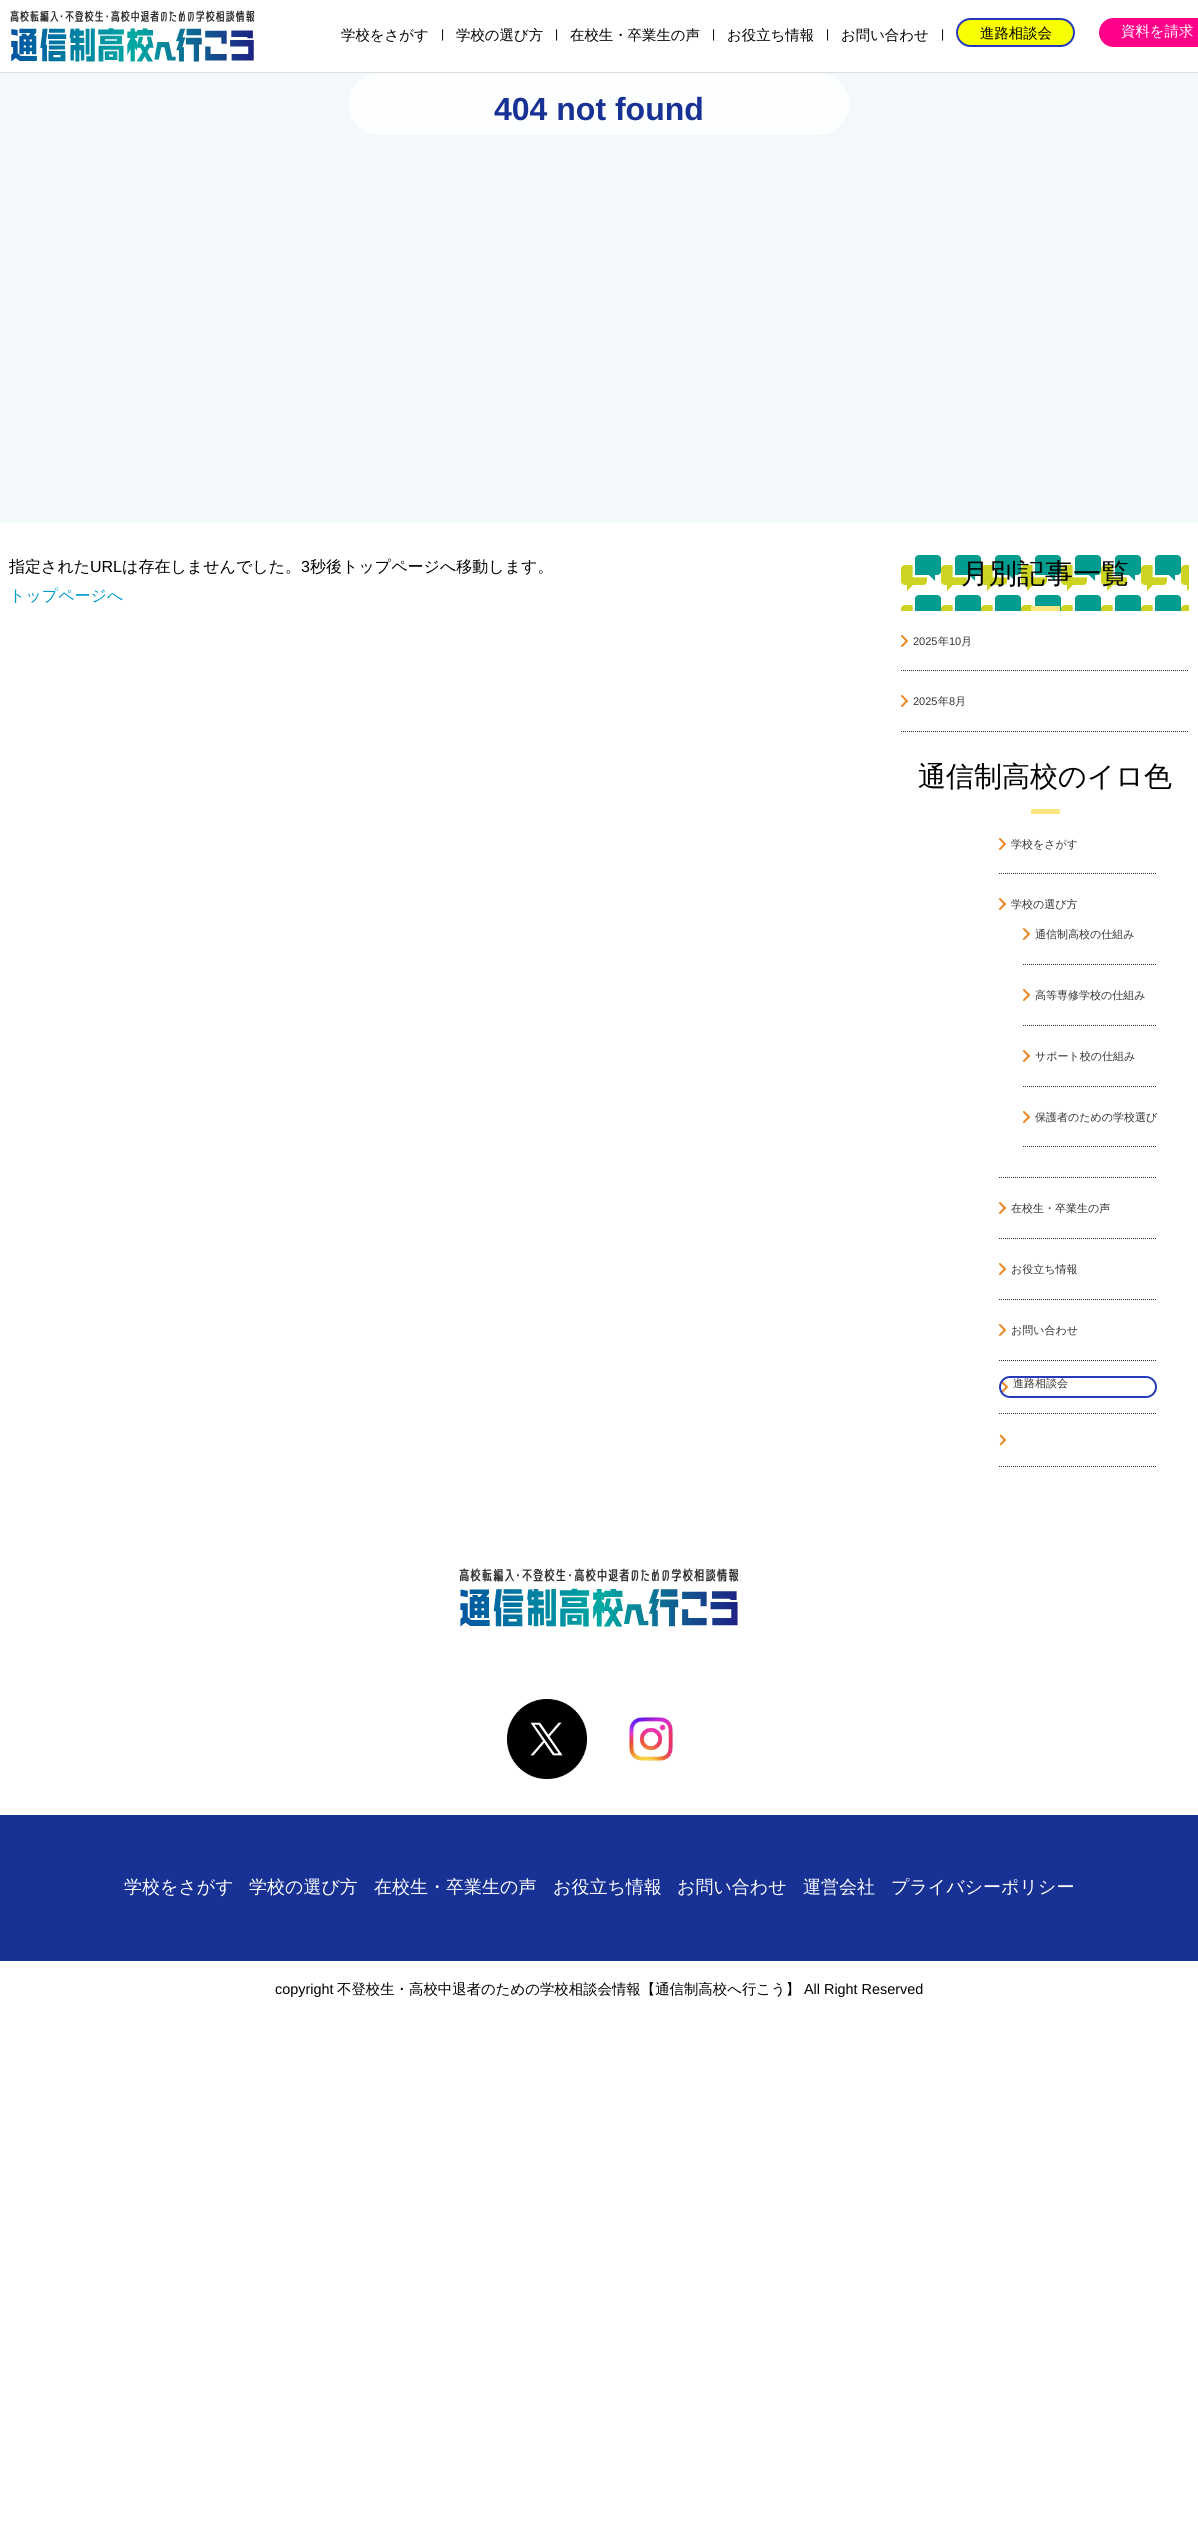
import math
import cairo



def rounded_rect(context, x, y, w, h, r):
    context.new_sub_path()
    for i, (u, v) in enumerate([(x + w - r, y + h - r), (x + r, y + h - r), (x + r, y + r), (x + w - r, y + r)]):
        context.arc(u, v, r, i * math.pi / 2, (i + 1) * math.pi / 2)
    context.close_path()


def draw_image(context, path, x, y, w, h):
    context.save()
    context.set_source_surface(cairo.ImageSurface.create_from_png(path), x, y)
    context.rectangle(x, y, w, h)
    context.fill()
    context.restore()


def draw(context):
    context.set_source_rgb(1, 1, 1)
    context.paint()
    context.set_source_rgb(222 / 255, 222 / 255, 222 / 255)
    context.rectangle(0, 72, 1198, 1)
    context.fill()
    draw_image(context, "images/1.png", 10, 10, 245, 52)
    context.set_source_rgb(248 / 255, 1, 0)
    rounded_rect(context, 957, 19, 117, 27, 13.5)
    context.fill_preserve()
    context.set_source_rgb(37 / 255, 57 / 255, 189 / 255)
    context.stroke()
    context.set_source_rgb(1, 0, 137 / 255)
    rounded_rect(context, 1099, 18, 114, 29, 14.5)
    context.fill()
    context.set_source_rgb(243 / 255, 248 / 255, 251 / 255)
    context.rectangle(0, 73, 1198, 450)
    context.fill()
    context.set_source_rgb(253 / 255, 254 / 255, 254 / 255)
    rounded_rect(context, 349, 73, 500, 62, 31)
    context.fill()
    draw_image(context, "images/2.png", 901, 555, 288, 56)
    context.set_source_rgb(251 / 255, 230 / 255, 130 / 255)
    context.rectangle(1031, 606, 29, 5)
    context.fill()
    context.new_path()
    context.move_to(901, 670.5)
    context.line_to(1189, 670.5)
    context.set_source_rgb(51 / 255, 51 / 255, 51 / 255)
    context.set_line_width(1)
    context.set_dash([1, 1])
    context.stroke()
    draw_image(context, "images/3.png", 901, 635, 7, 12)
    context.new_path()
    context.move_to(901, 731.5)
    context.line_to(1189, 731.5)
    context.stroke()
    draw_image(context, "images/3.png", 901, 695, 7, 12)
    context.set_source_rgb(251 / 255, 230 / 255, 130 / 255)
    context.rectangle(1031, 809, 29, 5)
    context.fill()
    context.new_path()
    context.move_to(999, 873.5)
    context.line_to(1157, 873.5)
    context.set_source_rgb(51 / 255, 51 / 255, 51 / 255)
    context.stroke()
    draw_image(context, "images/3.png", 999, 838, 7, 12)
    context.new_path()
    context.move_to(999, 1177.5)
    context.line_to(1157, 1177.5)
    context.stroke()
    draw_image(context, "images/3.png", 999, 898, 7, 12)
    context.new_path()
    context.move_to(1023, 964.5)
    context.line_to(1157, 964.5)
    context.stroke()
    draw_image(context, "images/3.png", 1023, 928, 7, 12)
    context.new_path()
    context.move_to(1023, 1025.5)
    context.line_to(1157, 1025.5)
    context.stroke()
    draw_image(context, "images/3.png", 1023, 989, 7, 12)
    context.new_path()
    context.move_to(1023, 1086.5)
    context.line_to(1157, 1086.5)
    context.stroke()
    draw_image(context, "images/3.png", 1023, 1050, 7, 12)
    context.new_path()
    context.move_to(1023, 1146.5)
    context.line_to(1157, 1146.5)
    context.stroke()
    draw_image(context, "images/3.png", 1023, 1111, 7, 12)
    context.new_path()
    context.move_to(999, 1238.5)
    context.line_to(1157, 1238.5)
    context.stroke()
    draw_image(context, "images/3.png", 999, 1202, 7, 12)
    context.new_path()
    context.move_to(999, 1299.5)
    context.line_to(1157, 1299.5)
    context.stroke()
    draw_image(context, "images/3.png", 999, 1263, 7, 12)
    context.new_path()
    context.move_to(999, 1360.5)
    context.line_to(1157, 1360.5)
    context.stroke()
    draw_image(context, "images/3.png", 999, 1324, 7, 12)
    context.new_path()
    context.move_to(999, 1413.5)
    context.line_to(1157, 1413.5)
    context.stroke()
    draw_image(context, "images/3.png", 1001, 1381, 7, 12)
    rounded_rect(context, 1000, 1377, 156, 20, 10)
    context.set_source_rgb(37 / 255, 57 / 255, 189 / 255)
    context.set_line_width(2)
    context.set_dash([])
    context.stroke()
    context.new_path()
    context.move_to(999, 1466.5)
    context.line_to(1157, 1466.5)
    context.set_source_rgb(51 / 255, 51 / 255, 51 / 255)
    context.set_line_width(1)
    context.set_dash([1, 1])
    context.stroke()
    draw_image(context, "images/4.png", 999, 1434, 7, 12)
    draw_image(context, "images/5.png", 459, 1568, 280, 59)
    draw_image(context, "images/6.png", 507, 1699, 80, 80)
    draw_image(context, "images/7.png", 629, 1717, 44, 44)
    context.set_source_rgb(23 / 255, 49 / 255, 149 / 255)
    context.rectangle(0, 1815, 1198, 146)
    context.fill()
    context.select_font_face("WenQuanYi Zen Hei Medium")
    context.set_font_size(14.4)
    context.set_source_rgb(0, 0, 0)
    context.move_to(341, 40)
    context.show_text("学校をさがす")
    context.select_font_face("Liberation Sans")
    context.set_font_size(12)
    context.move_to(441, 38)
    context.show_text("|")
    context.select_font_face("WenQuanYi Zen Hei Medium")
    context.set_font_size(14.4)
    context.move_to(456, 40)
    context.show_text("学校の選び方")
    context.select_font_face("Liberation Sans")
    context.set_font_size(12)
    context.move_to(555, 38)
    context.show_text("|")
    context.select_font_face("WenQuanYi Zen Hei Medium")
    context.set_font_size(14.4)
    context.move_to(570, 40)
    context.show_text("在校生・卒業生の声")
    context.select_font_face("Liberation Sans")
    context.set_font_size(12)
    context.move_to(712, 38)
    context.show_text("|")
    context.select_font_face("WenQuanYi Zen Hei Medium")
    context.set_font_size(14.4)
    context.move_to(727, 40)
    context.show_text("お役立ち情報")
    context.select_font_face("Liberation Sans")
    context.set_font_size(12)
    context.move_to(826, 38)
    context.show_text("|")
    context.select_font_face("WenQuanYi Zen Hei Medium")
    context.set_font_size(14.4)
    context.move_to(841, 40)
    context.show_text("お問い合わせ")
    context.select_font_face("Liberation Sans")
    context.set_font_size(12)
    context.move_to(941, 38)
    context.show_text("|")
    context.select_font_face("WenQuanYi Zen Hei Medium")
    context.set_font_size(14.4)
    context.move_to(980, 38)
    context.show_text("進路相談会")
    context.set_source_rgb(1, 1, 1)
    context.move_to(1121, 36)
    context.show_text("資料を請求")
    context.select_font_face("Liberation Sans", cairo.FontSlant.NORMAL, cairo.FontWeight.BOLD)
    context.set_font_size(32)
    context.set_source_rgb(23 / 255, 49 / 255, 149 / 255)
    context.move_to(494, 120)
    context.show_text("404 not found")
    context.select_font_face("WenQuanYi Zen Hei Medium")
    context.set_font_size(16)
    context.set_source_rgb(0, 0, 0)
    context.move_to(9, 572)
    context.show_text("指定された")
    context.select_font_face("Liberation Sans")
    context.move_to(90, 572)
    context.show_text("URL")
    context.select_font_face("WenQuanYi Zen Hei Medium")
    context.move_to(122, 572)
    context.show_text("は存在しませんでした。")
    context.select_font_face("Liberation Sans")
    context.move_to(301, 572)
    context.show_text("3")
    context.select_font_face("WenQuanYi Zen Hei Medium")
    context.move_to(310, 572)
    context.show_text("秒後トップページへ移動します。")
    context.set_source_rgb(0, 153 / 255, 204 / 255)
    context.move_to(9, 601)
    context.show_text("トップページへ")
    context.set_font_size(28)
    context.set_source_rgb(0, 0, 0)
    context.move_to(961, 583)
    context.show_text("月別記事一覧")
    context.select_font_face("Liberation Sans")
    context.set_font_size(11)
    context.set_source_rgb(51 / 255, 51 / 255, 51 / 255)
    context.move_to(913, 645)
    context.show_text("2025")
    context.select_font_face("WenQuanYi Zen Hei Medium")
    context.move_to(938, 645)
    context.show_text("年")
    context.select_font_face("Liberation Sans")
    context.move_to(949, 645)
    context.show_text("10")
    context.select_font_face("WenQuanYi Zen Hei Medium")
    context.move_to(961, 645)
    context.show_text("月")
    context.select_font_face("Liberation Sans")
    context.move_to(913, 705)
    context.show_text("2025")
    context.select_font_face("WenQuanYi Zen Hei Medium")
    context.move_to(938, 705)
    context.show_text("年")
    context.select_font_face("Liberation Sans")
    context.move_to(949, 705)
    context.show_text("8")
    context.select_font_face("WenQuanYi Zen Hei Medium")
    context.move_to(955, 705)
    context.show_text("月")
    context.set_font_size(28)
    context.set_source_rgb(0, 0, 0)
    context.move_to(918, 786)
    context.show_text("通信制高校のイロ色")
    context.set_font_size(11)
    context.set_source_rgb(51 / 255, 51 / 255, 51 / 255)
    context.move_to(1011, 848)
    context.show_text("学校をさがす")
    context.move_to(1011, 908)
    context.show_text("学校の選び方")
    context.move_to(1035, 938)
    context.show_text("通信制高校の仕組み")
    context.move_to(1035, 999)
    context.show_text("高等専修学校の仕組み")
    context.move_to(1035, 1060)
    context.show_text("サポート校の仕組み")
    context.move_to(1035, 1121)
    context.show_text("保護者のための学校選び")
    context.move_to(1011, 1212)
    context.show_text("在校生・卒業生の声")
    context.move_to(1011, 1273)
    context.show_text("お役立ち情報")
    context.move_to(1011, 1334)
    context.show_text("お問い合わせ")
    context.move_to(1013, 1387)
    context.show_text("進路相談会")
    context.set_font_size(18)
    context.set_source_rgb(1, 1, 1)
    context.move_to(124, 1893)
    context.show_text("学校をさがす")
    context.move_to(249, 1893)
    context.show_text("学校の選び方")
    context.move_to(374, 1893)
    context.show_text("在校生・卒業生の声")
    context.move_to(553, 1893)
    context.show_text("お役立ち情報")
    context.move_to(677, 1893)
    context.show_text("お問い合わせ")
    context.move_to(803, 1893)
    context.show_text("運営会社")
    context.move_to(891, 1893)
    context.show_text("プライバシーポリシー")
    context.select_font_face("Liberation Sans")
    context.set_font_size(14.4)
    context.set_source_rgb(0, 0, 0)
    context.move_to(275, 1994)
    context.show_text("copyright")
    context.select_font_face("WenQuanYi Zen Hei Medium")
    context.move_to(337, 1994)
    context.show_text("不登校生・高校中退者のための学校相談会情報【通信制高校へ行こう】")
    context.select_font_face("Liberation Sans")
    context.move_to(804, 1994)
    context.show_text("All Right Reserved")


surface = cairo.ImageSurface(cairo.Format.RGB24, 1198, 2533)
context = cairo.Context(surface)
options = cairo.FontOptions()
options.set_hint_metrics(cairo.HintMetrics.OFF)
options.set_hint_style(cairo.HintStyle.NONE)
context.set_font_options(options)
context.set_miter_limit(4)
draw(context)
surface.write_to_png("out.png")
